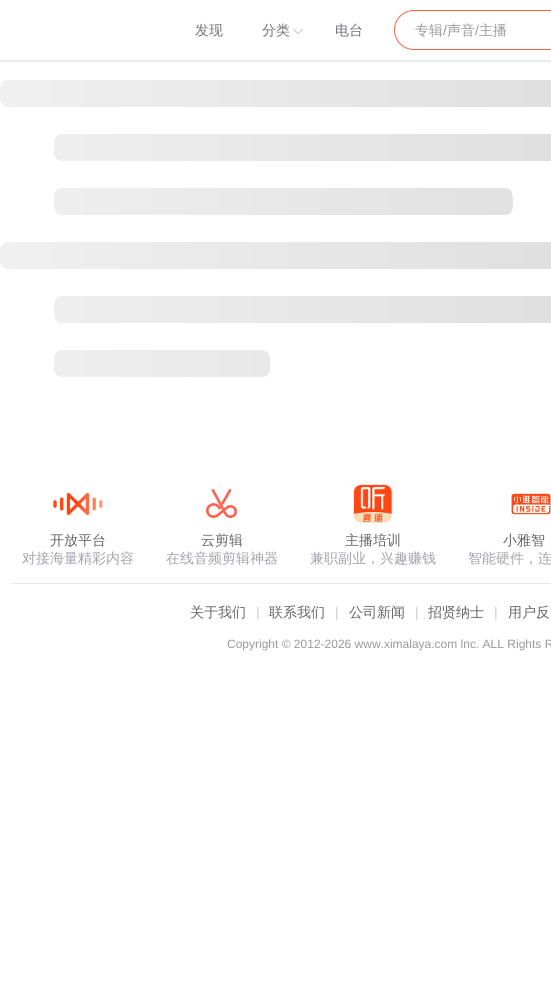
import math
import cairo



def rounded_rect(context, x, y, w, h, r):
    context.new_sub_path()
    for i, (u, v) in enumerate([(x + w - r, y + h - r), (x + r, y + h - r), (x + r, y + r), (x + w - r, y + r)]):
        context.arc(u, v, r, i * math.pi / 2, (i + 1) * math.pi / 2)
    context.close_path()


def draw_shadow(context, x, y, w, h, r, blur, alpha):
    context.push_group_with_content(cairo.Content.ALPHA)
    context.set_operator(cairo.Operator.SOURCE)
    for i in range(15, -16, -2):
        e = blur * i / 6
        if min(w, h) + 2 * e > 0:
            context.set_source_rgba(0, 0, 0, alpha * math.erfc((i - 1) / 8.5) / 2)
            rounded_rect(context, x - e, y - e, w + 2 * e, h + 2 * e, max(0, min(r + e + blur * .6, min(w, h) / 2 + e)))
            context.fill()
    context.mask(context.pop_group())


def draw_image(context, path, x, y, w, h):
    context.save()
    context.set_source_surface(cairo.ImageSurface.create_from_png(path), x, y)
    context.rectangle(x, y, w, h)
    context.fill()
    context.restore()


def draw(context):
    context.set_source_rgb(1, 1, 1)
    context.paint()
    context.save()
    context.rectangle(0, 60, 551, 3)
    context.clip()
    context.set_source_rgb(0, 0, 0)
    draw_shadow(context, 0, 2, 551, 60, 0, 1, 0.1)
    context.restore()
    context.set_source_rgb(204 / 255, 204 / 255, 204 / 255)
    context.new_path()
    context.move_to(303, 29.5)
    context.line_to(298, 34.5)
    context.line_to(297.5, 33.5)
    context.line_to(302, 29)
    context.close_path()
    context.fill()
    context.new_path()
    context.move_to(298.5, 33.5)
    context.line_to(298, 34.5)
    context.line_to(293, 29.5)
    context.line_to(294, 29)
    context.close_path()
    context.fill()
    rounded_rect(context, 394.5, 10.5, 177, 39, 19.5)
    context.set_source_rgb(248 / 255, 100 / 255, 66 / 255)
    context.set_line_width(1)
    context.stroke()
    gradient = cairo.LinearGradient(0, 80, 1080, 80)
    gradient.add_color_stop_rgba(0, 240 / 255, 240 / 255, 240 / 255, 1)
    gradient.add_color_stop_rgba(0.5, 224 / 255, 224 / 255, 224 / 255, 1)
    gradient.add_color_stop_rgba(1, 240 / 255, 240 / 255, 240 / 255, 1)
    context.set_source(gradient)
    context.set_fill_rule(cairo.FillRule.EVEN_ODD)
    context.new_path()
    context.move_to(8, 80)
    context.curve_to(4, 80, 0, 84, 0, 88)
    context.line_to(0, 99)
    context.curve_to(0, 103, 4, 107, 8, 107)
    context.line_to(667, 107)
    context.curve_to(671, 107, 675, 103, 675, 99)
    context.line_to(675, 88)
    context.curve_to(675, 84, 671, 80, 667, 80)
    context.close_path()
    context.move_to(8, 242)
    context.curve_to(4, 242, 0, 246, 0, 250)
    context.line_to(0, 261)
    context.curve_to(0, 265, 4, 269, 8, 269)
    context.line_to(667, 269)
    context.curve_to(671, 269, 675, 265, 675, 261)
    context.line_to(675, 250)
    context.curve_to(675, 246, 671, 242, 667, 242)
    context.close_path()
    context.move_to(62, 134)
    context.curve_to(58, 134, 54, 138, 54, 142)
    context.line_to(54, 153)
    context.curve_to(54, 157, 58, 161, 62, 161)
    context.line_to(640, 161)
    context.curve_to(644, 161, 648, 157, 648, 153)
    context.line_to(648, 142)
    context.curve_to(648, 138, 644, 134, 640, 134)
    context.close_path()
    context.move_to(62, 188)
    context.curve_to(52, 188, 54, 200, 54, 207)
    context.curve_to(54, 211, 58, 215, 62, 215)
    context.line_to(505, 215)
    context.curve_to(513, 215, 513, 207, 513, 202)
    context.curve_to(513, 196, 513, 188, 505, 188)
    context.close_path()
    context.move_to(62, 296)
    context.curve_to(54, 296, 54, 304, 54, 310)
    context.curve_to(54, 315, 54, 323, 62, 323)
    context.line_to(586, 323)
    context.curve_to(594, 323, 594, 315, 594, 310)
    context.curve_to(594, 304, 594, 296, 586, 296)
    context.close_path()
    context.move_to(62, 350)
    context.curve_to(58, 350, 54, 354, 54, 358)
    context.line_to(54, 369)
    context.curve_to(54, 373, 58, 377, 62, 377)
    context.line_to(262, 377)
    context.curve_to(266, 377, 270, 373, 270, 369)
    context.line_to(270, 358)
    context.curve_to(270, 354, 266, 350, 262, 350)
    context.close_path()
    context.fill()
    context.set_source_rgb(232 / 255, 232 / 255, 232 / 255)
    context.rectangle(11, 583, 540, 1)
    context.fill()
    draw_image(context, "images/1.png", 53, 492, 50, 24)
    draw_image(context, "images/2.png", 206, 488, 32, 30)
    draw_image(context, "images/3.png", 353, 484, 40, 40)
    draw_image(context, "images/4.png", 511, 493, 40, 22)
    context.select_font_face("WenQuanYi Zen Hei Medium")
    context.set_font_size(14)
    context.set_source_rgb(114 / 255, 114 / 255, 123 / 255)
    context.move_to(195, 35)
    context.show_text("发现")
    context.move_to(262, 35)
    context.show_text("分类")
    context.move_to(335, 35)
    context.show_text("电台")
    context.set_source_rgb(153 / 255, 153 / 255, 153 / 255)
    context.move_to(415, 35)
    context.show_text("专辑")
    context.select_font_face("Liberation Sans")
    context.move_to(443, 35)
    context.show_text("/")
    context.select_font_face("WenQuanYi Zen Hei Medium")
    context.move_to(447, 35)
    context.show_text("声音")
    context.select_font_face("Liberation Sans")
    context.move_to(475, 35)
    context.show_text("/")
    context.select_font_face("WenQuanYi Zen Hei Medium")
    context.move_to(479, 35)
    context.show_text("主播")
    context.set_source_rgb(102 / 255, 102 / 255, 102 / 255)
    context.move_to(50, 545)
    context.show_text("开放平台")
    context.set_source_rgb(163 / 255, 163 / 255, 172 / 255)
    context.move_to(22, 563)
    context.show_text("对接海量精彩内容")
    context.set_source_rgb(102 / 255, 102 / 255, 102 / 255)
    context.move_to(201, 545)
    context.show_text("云剪辑")
    context.set_source_rgb(163 / 255, 163 / 255, 172 / 255)
    context.move_to(166, 563)
    context.show_text("在线音频剪辑神器")
    context.set_source_rgb(102 / 255, 102 / 255, 102 / 255)
    context.move_to(345, 545)
    context.show_text("主播培训")
    context.set_source_rgb(163 / 255, 163 / 255, 172 / 255)
    context.move_to(310, 563)
    context.show_text("兼职副业，兴趣赚钱")
    context.set_source_rgb(102 / 255, 102 / 255, 102 / 255)
    context.move_to(503, 545)
    context.show_text("小雅智")
    context.set_source_rgb(163 / 255, 163 / 255, 172 / 255)
    context.move_to(468, 563)
    context.show_text("智能硬件，连")
    context.set_source_rgb(102 / 255, 102 / 255, 102 / 255)
    context.move_to(190, 617)
    context.show_text("关于我们")
    context.select_font_face("Liberation Sans")
    context.set_source_rgb(204 / 255, 204 / 255, 204 / 255)
    context.move_to(256, 617)
    context.show_text("|")
    context.select_font_face("WenQuanYi Zen Hei Medium")
    context.set_source_rgb(102 / 255, 102 / 255, 102 / 255)
    context.move_to(269, 617)
    context.show_text("联系我们")
    context.select_font_face("Liberation Sans")
    context.set_source_rgb(204 / 255, 204 / 255, 204 / 255)
    context.move_to(335, 617)
    context.show_text("|")
    context.select_font_face("WenQuanYi Zen Hei Medium")
    context.set_source_rgb(102 / 255, 102 / 255, 102 / 255)
    context.move_to(349, 617)
    context.show_text("公司新闻")
    context.select_font_face("Liberation Sans")
    context.set_source_rgb(204 / 255, 204 / 255, 204 / 255)
    context.move_to(415, 617)
    context.show_text("|")
    context.select_font_face("WenQuanYi Zen Hei Medium")
    context.set_source_rgb(102 / 255, 102 / 255, 102 / 255)
    context.move_to(428, 617)
    context.show_text("招贤纳士")
    context.select_font_face("Liberation Sans")
    context.set_source_rgb(204 / 255, 204 / 255, 204 / 255)
    context.move_to(494, 617)
    context.show_text("|")
    context.select_font_face("WenQuanYi Zen Hei Medium")
    context.set_source_rgb(102 / 255, 102 / 255, 102 / 255)
    context.move_to(508, 617)
    context.show_text("用户反")
    context.select_font_face("Liberation Sans")
    context.set_font_size(12)
    context.set_source_rgb(153 / 255, 153 / 255, 153 / 255)
    context.move_to(227, 648)
    context.show_text("Copyright © 2012-2026 www.ximalaya.com lnc. ALL Rights R")


surface = cairo.ImageSurface(cairo.Format.RGB24, 551, 982)
context = cairo.Context(surface)
options = cairo.FontOptions()
options.set_hint_metrics(cairo.HintMetrics.OFF)
options.set_hint_style(cairo.HintStyle.NONE)
context.set_font_options(options)
context.set_miter_limit(4)
draw(context)
surface.write_to_png("out.png")
